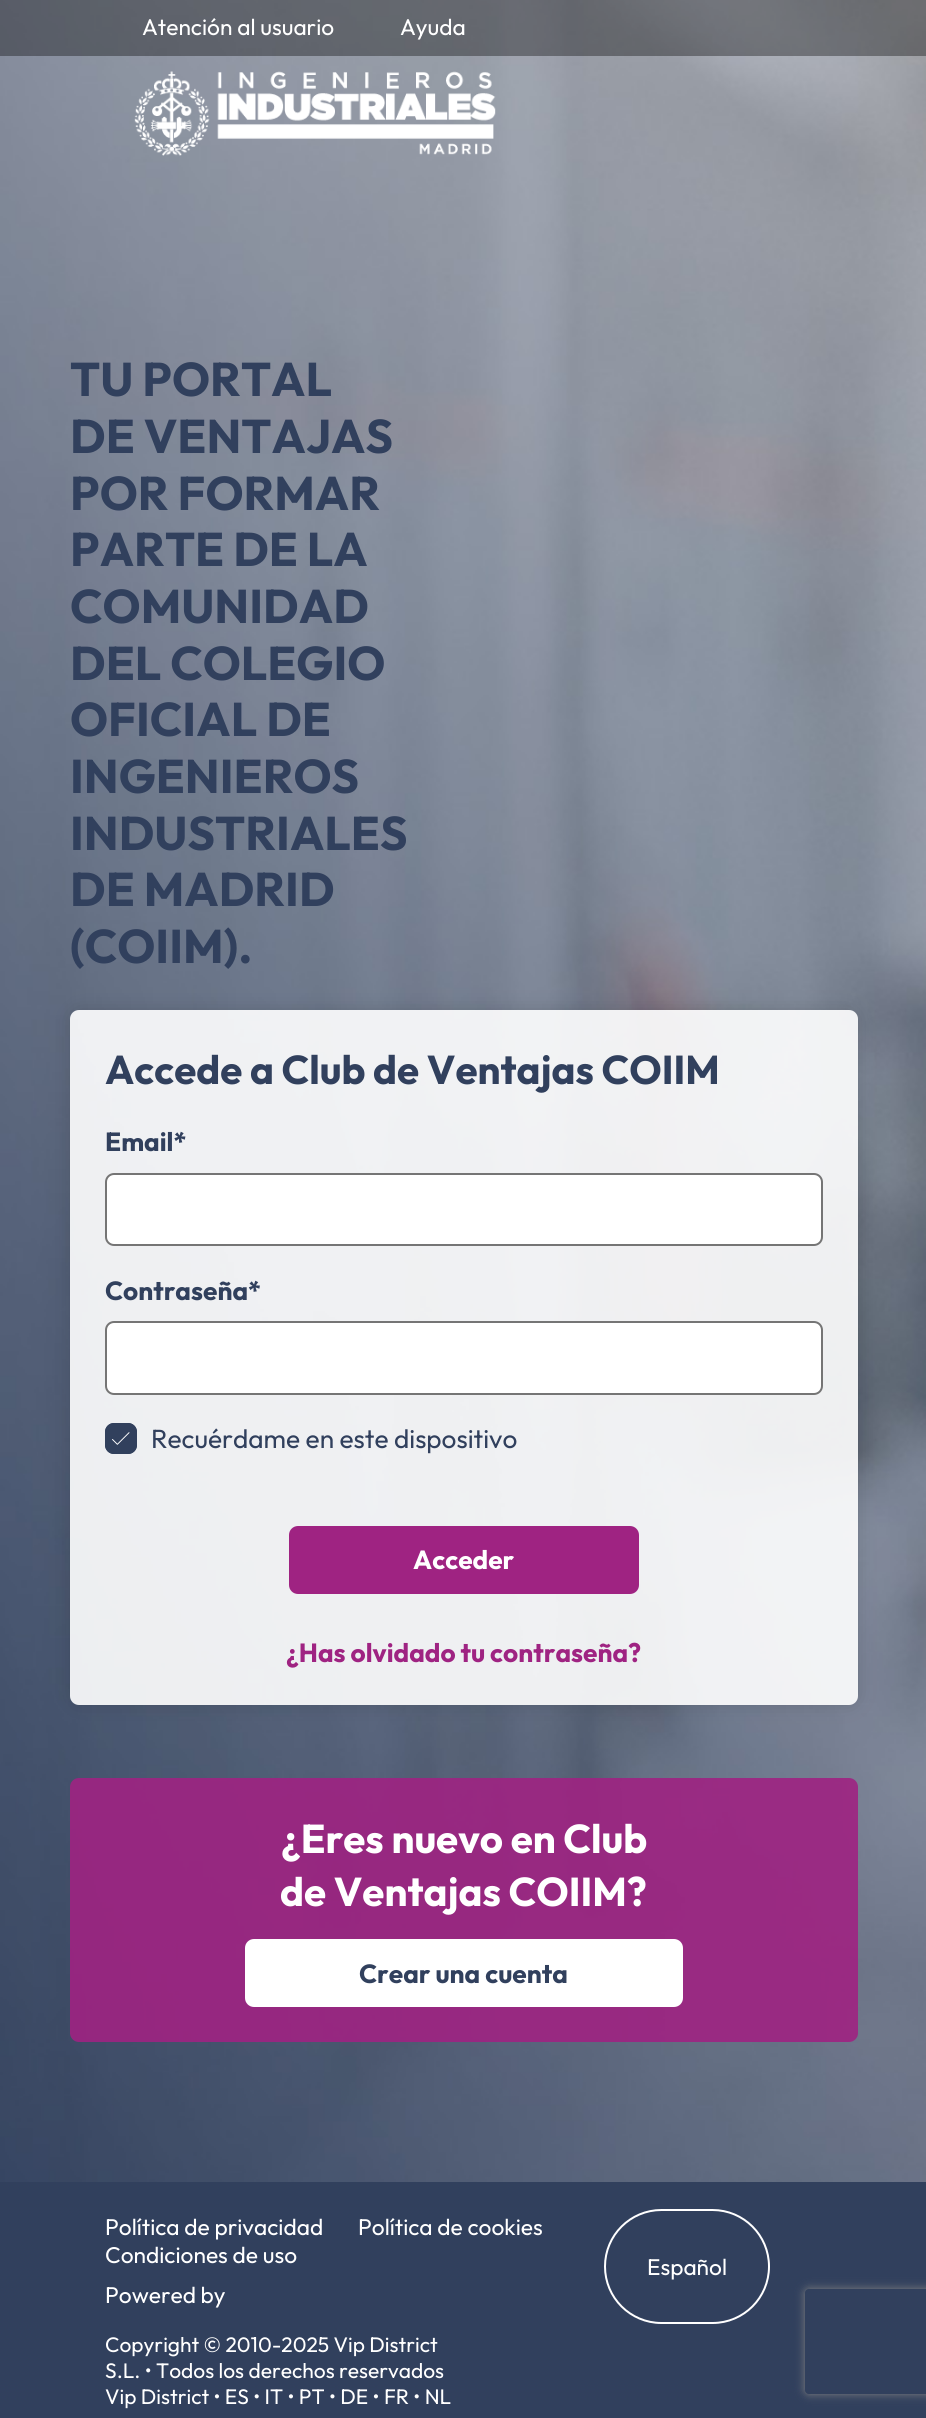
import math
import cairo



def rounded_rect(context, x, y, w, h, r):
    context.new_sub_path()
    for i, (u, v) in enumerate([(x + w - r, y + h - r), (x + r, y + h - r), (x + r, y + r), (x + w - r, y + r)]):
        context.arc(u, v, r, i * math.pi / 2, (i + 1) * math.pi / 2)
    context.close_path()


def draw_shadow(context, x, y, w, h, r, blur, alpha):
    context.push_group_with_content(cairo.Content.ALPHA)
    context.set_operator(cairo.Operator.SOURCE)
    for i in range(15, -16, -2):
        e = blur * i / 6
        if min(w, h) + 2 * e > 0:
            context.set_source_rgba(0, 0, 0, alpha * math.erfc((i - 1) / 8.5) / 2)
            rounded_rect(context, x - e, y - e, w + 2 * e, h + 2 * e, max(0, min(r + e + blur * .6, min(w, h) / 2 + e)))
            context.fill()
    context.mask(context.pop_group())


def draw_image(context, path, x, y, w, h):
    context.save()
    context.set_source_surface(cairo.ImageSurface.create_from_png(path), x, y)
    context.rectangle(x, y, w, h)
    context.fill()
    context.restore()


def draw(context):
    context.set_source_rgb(1, 1, 1)
    context.paint()
    draw_image(context, "images/1.png", 0, 0, 926, 2182)
    context.set_source_rgba(0, 0, 0, 0.35)
    context.rectangle(0, 0, 926, 56)
    context.fill()
    draw_image(context, "images/2.png", 134, 71, 362, 85)
    context.save()
    context.set_fill_rule(cairo.FillRule.EVEN_ODD)
    context.new_path()
    context.move_to(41, 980)
    context.line_to(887, 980)
    context.line_to(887, 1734)
    context.line_to(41, 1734)
    context.close_path()
    context.move_to(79, 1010)
    context.line_to(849, 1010)
    context.curve_to(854, 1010, 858, 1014, 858, 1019)
    context.line_to(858, 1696)
    context.curve_to(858, 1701, 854, 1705, 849, 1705)
    context.line_to(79, 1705)
    context.curve_to(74, 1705, 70, 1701, 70, 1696)
    context.line_to(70, 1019)
    context.curve_to(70, 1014, 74, 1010, 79, 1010)
    context.close_path()
    context.clip()
    context.set_source_rgb(0, 0, 0)
    draw_shadow(context, 74, 1013, 780, 688, 5, 10.5, 0.2)
    context.restore()
    context.set_source_rgba(1, 1, 1, 0.9)
    rounded_rect(context, 70, 1010, 788, 695, 9)
    context.fill()
    context.set_source_rgb(1, 1, 1)
    rounded_rect(context, 106, 1174, 716, 71, 8)
    context.fill_preserve()
    context.set_source_rgb(117 / 255, 117 / 255, 117 / 255)
    context.stroke()
    context.set_source_rgb(1, 1, 1)
    rounded_rect(context, 106, 1322, 716, 72, 8)
    context.fill_preserve()
    context.set_source_rgb(117 / 255, 117 / 255, 117 / 255)
    context.stroke()
    context.set_source_rgb(49 / 255, 64 / 255, 93 / 255)
    rounded_rect(context, 105, 1423, 32, 31, 9)
    context.fill()
    draw_image(context, "images/3.png", 112, 1432, 18, 13)
    rounded_rect(context, 106, 1424, 30, 29, 8)
    context.stroke()
    context.set_source_rgb(159 / 255, 35 / 255, 130 / 255)
    rounded_rect(context, 291, 1528, 346, 64, 7)
    context.fill_preserve()
    context.set_line_width(4)
    context.stroke()
    context.set_source_rgb(49 / 255, 64 / 255, 93 / 255)
    context.rectangle(0, 2182, 926, 236)
    context.fill()
    context.save()
    context.set_fill_rule(cairo.FillRule.EVEN_ODD)
    context.new_path()
    context.move_to(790, 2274)
    context.line_to(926, 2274)
    context.line_to(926, 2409)
    context.line_to(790, 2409)
    context.close_path()
    context.move_to(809, 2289)
    context.line_to(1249, 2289)
    context.curve_to(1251, 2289, 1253, 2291, 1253, 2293)
    context.line_to(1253, 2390)
    context.curve_to(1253, 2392, 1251, 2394, 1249, 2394)
    context.line_to(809, 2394)
    context.curve_to(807, 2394, 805, 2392, 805, 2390)
    context.line_to(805, 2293)
    context.curve_to(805, 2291, 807, 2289, 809, 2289)
    context.close_path()
    context.clip()
    context.set_source_rgb(128 / 255, 128 / 255, 128 / 255)
    draw_shadow(context, 805, 2289, 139, 105, 4, 4.5, 1)
    context.restore()
    context.set_source_rgba(159 / 255, 35 / 255, 130 / 255, 0.9)
    rounded_rect(context, 70, 1778, 788, 264, 9)
    context.fill()
    context.set_source_rgb(1, 1, 1)
    rounded_rect(context, 247, 1941, 434, 64, 7)
    context.fill_preserve()
    context.stroke()
    rounded_rect(context, 605, 2210, 164, 113, 56.5)
    context.set_line_width(2)
    context.stroke()
    context.select_font_face("Outfit")
    context.set_font_size(22.75)
    context.move_to(142, 35)
    context.show_text("Atención al usuario")
    context.move_to(400, 35)
    context.show_text("Ayuda")
    context.select_font_face("Outfit", cairo.FontSlant.NORMAL, cairo.FontWeight.BOLD)
    context.set_font_size(47.25)
    context.set_source_rgb(49 / 255, 64 / 255, 93 / 255)
    context.move_to(70, 396)
    context.show_text("TU PORTAL")
    context.move_to(70, 453)
    context.show_text("DE VENTAJAS")
    context.move_to(70, 510)
    context.show_text("POR FORMAR")
    context.move_to(70, 566)
    context.show_text("PARTE DE LA")
    context.move_to(70, 623)
    context.show_text("COMUNIDAD")
    context.move_to(70, 680)
    context.show_text("DEL COLEGIO")
    context.move_to(70, 736)
    context.show_text("OFICIAL DE")
    context.move_to(70, 793)
    context.show_text("INGENIEROS")
    context.move_to(70, 850)
    context.show_text("INDUSTRIALES")
    context.move_to(70, 906)
    context.show_text("DE MADRID")
    context.move_to(70, 963)
    context.show_text("(COIIM).")
    context.set_font_size(40.25)
    context.move_to(105, 1084)
    context.show_text("Accede a Club de Ventajas COIIM")
    context.set_font_size(26.25)
    context.move_to(105, 1151)
    context.show_text("Email*")
    context.move_to(105, 1300)
    context.show_text("Contraseña*")
    context.select_font_face("Outfit")
    context.move_to(151, 1448)
    context.show_text("Recuérdame en este dispositivo")
    context.select_font_face("Outfit", cairo.FontSlant.NORMAL, cairo.FontWeight.BOLD)
    context.set_source_rgb(1, 1, 1)
    context.move_to(413, 1569)
    context.show_text("Acceder")
    context.set_source_rgb(159 / 255, 35 / 255, 130 / 255)
    context.move_to(286, 1662)
    context.show_text("¿Has olvidado tu contraseña?")
    context.set_font_size(40.25)
    context.set_source_rgb(1, 1, 1)
    context.move_to(281, 1853)
    context.show_text("¿Eres nuevo en Club")
    context.move_to(280, 1906)
    context.show_text("de Ventajas COIIM?")
    context.set_font_size(26.25)
    context.set_source_rgb(49 / 255, 64 / 255, 93 / 255)
    context.move_to(359, 1983)
    context.show_text("Crear una cuenta")
    context.select_font_face("Outfit")
    context.set_font_size(22.75)
    context.set_source_rgb(1, 1, 1)
    context.move_to(105, 2235)
    context.show_text("Política de privacidad")
    context.move_to(358, 2235)
    context.show_text("Política de cookies")
    context.move_to(105, 2263)
    context.show_text("Condiciones de uso")
    context.move_to(105, 2303)
    context.show_text("Powered by")
    context.move_to(647, 2275)
    context.show_text("Español")
    context.set_font_size(21)
    context.move_to(105, 2352)
    context.show_text("Copyright © 2010-2025 Vip District")
    context.move_to(105, 2378)
    context.show_text("S.L. • Todos los derechos reservados")
    context.move_to(105, 2404)
    context.show_text("Vip District • ES • IT • PT • DE • FR • NL")


surface = cairo.ImageSurface(cairo.Format.RGB24, 926, 2418)
context = cairo.Context(surface)
options = cairo.FontOptions()
options.set_hint_metrics(cairo.HintMetrics.OFF)
options.set_hint_style(cairo.HintStyle.NONE)
context.set_font_options(options)
context.set_miter_limit(4)
draw(context)
surface.write_to_png("out.png")
